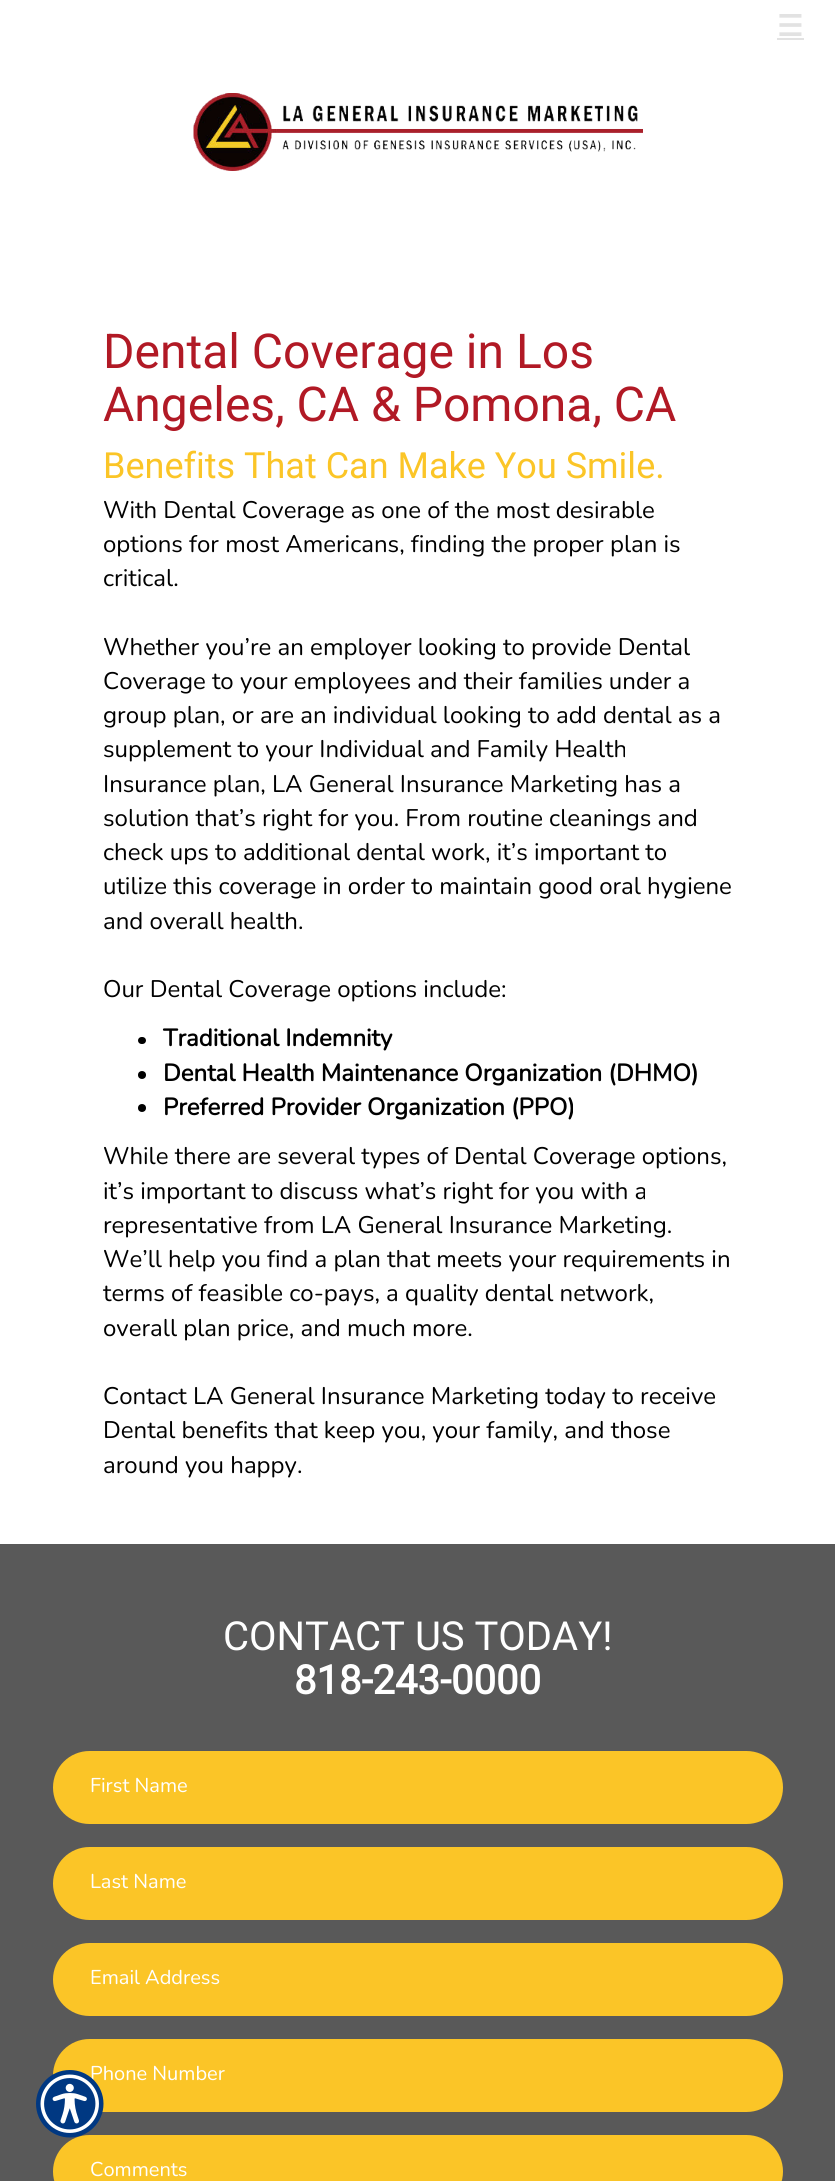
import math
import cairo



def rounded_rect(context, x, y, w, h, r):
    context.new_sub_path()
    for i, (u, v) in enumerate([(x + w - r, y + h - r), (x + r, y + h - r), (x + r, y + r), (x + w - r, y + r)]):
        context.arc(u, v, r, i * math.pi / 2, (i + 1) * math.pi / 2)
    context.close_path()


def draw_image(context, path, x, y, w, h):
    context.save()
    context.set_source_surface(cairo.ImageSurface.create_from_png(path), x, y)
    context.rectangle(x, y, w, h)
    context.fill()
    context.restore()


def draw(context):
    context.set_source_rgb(1, 1, 1)
    context.paint()
    context.set_source_rgb(226 / 255, 226 / 255, 226 / 255)
    context.rectangle(777, 38, 27, 2)
    context.fill()
    draw_image(context, "images/2.png", 193, 93, 450, 78)
    context.set_source_rgb(0, 0, 0)
    rounded_rect(context, 138, 1037, 8, 7, 3.5)
    context.fill()
    context.arc(142, 1075, 4, 0, 2 * math.pi)
    context.fill()
    context.arc(142, 1108, 4, 0, 2 * math.pi)
    context.fill()
    context.set_source_rgb(89 / 255, 89 / 255, 89 / 255)
    context.rectangle(0, 1544, 835, 637)
    context.fill()
    context.set_source_rgb(251 / 255, 197 / 255, 39 / 255)
    rounded_rect(context, 53, 1751, 730, 73, 36.5)
    context.fill()
    rounded_rect(context, 53, 1847, 730, 73, 36.5)
    context.fill()
    rounded_rect(context, 53, 1943, 730, 73, 36.5)
    context.fill()
    rounded_rect(context, 53, 2039, 730, 73, 36.5)
    context.fill()
    rounded_rect(context, 53, 2135, 730, 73, 36.5)
    context.fill()
    context.select_font_face("DejaVu Sans", cairo.FontSlant.NORMAL, cairo.FontWeight.BOLD)
    context.set_font_size(29)
    context.set_source_rgb(226 / 255, 226 / 255, 226 / 255)
    context.move_to(777, 36)
    context.show_text("☰")
    context.select_font_face("Roboto")
    context.set_font_size(48)
    context.set_source_rgb(177 / 255, 25 / 255, 37 / 255)
    context.move_to(103, 368)
    context.show_text("Dental Coverage in Los")
    context.move_to(103, 421)
    context.show_text("Angeles, CA & Pomona, CA")
    context.set_font_size(36)
    context.set_source_rgb(251 / 255, 197 / 255, 39 / 255)
    context.move_to(103, 478)
    context.show_text("Benefits That Can Make You Smile.")
    context.select_font_face("Nunito ExtraLight")
    context.set_font_size(24)
    context.set_source_rgb(0, 0, 0)
    context.move_to(103, 518)
    context.show_text("With Dental Coverage as one of the most desirable")
    context.move_to(103, 552)
    context.show_text("options for most Americans, finding the proper plan is")
    context.move_to(103, 586)
    context.show_text("critical.")
    context.move_to(103, 655)
    context.show_text("Whether you’re an employer looking to provide Dental")
    context.move_to(103, 689)
    context.show_text("Coverage to your employees and their families under a")
    context.move_to(103, 723)
    context.show_text("group plan, or are an individual looking to add dental as a")
    context.move_to(103, 757)
    context.show_text("supplement to your Individual and Family Health")
    context.move_to(103, 792)
    context.show_text("Insurance plan, LA General Insurance Marketing has a")
    context.move_to(103, 826)
    context.show_text("solution that’s right for you. From routine cleanings and")
    context.move_to(103, 860)
    context.show_text("check ups to additional dental work, it’s important to")
    context.move_to(103, 894)
    context.show_text("utilize this coverage in order to maintain good oral hygiene")
    context.move_to(103, 929)
    context.show_text("and overall health.")
    context.move_to(103, 997)
    context.show_text("Our Dental Coverage options include:")
    context.select_font_face("Nunito", cairo.FontSlant.NORMAL, cairo.FontWeight.BOLD)
    context.move_to(163, 1046)
    context.show_text("Traditional Indemnity")
    context.move_to(163, 1081)
    context.show_text("Dental Health Maintenance Organization (DHMO)")
    context.move_to(163, 1115)
    context.show_text("Preferred Provider Organization (PPO)")
    context.select_font_face("Nunito ExtraLight")
    context.move_to(103, 1164)
    context.show_text("While there are several types of Dental Coverage options,")
    context.move_to(103, 1199)
    context.show_text("it’s important to discuss what’s right for you with a")
    context.move_to(103, 1233)
    context.show_text("representative from LA General Insurance Marketing.")
    context.move_to(103, 1267)
    context.show_text("We’ll help you find a plan that meets your requirements in")
    context.move_to(103, 1301)
    context.show_text("terms of feasible co-pays, a quality dental network,")
    context.move_to(103, 1336)
    context.show_text("overall plan price, and much more.")
    context.move_to(103, 1404)
    context.show_text("Contact LA General Insurance Marketing today to receive")
    context.move_to(103, 1438)
    context.show_text("Dental benefits that keep you, your family, and those")
    context.move_to(103, 1473)
    context.show_text("around you happy.")
    context.select_font_face("Roboto")
    context.set_font_size(40)
    context.set_source_rgb(1, 1, 1)
    context.move_to(223, 1650)
    context.show_text("CONTACT US TODAY!")
    context.select_font_face("Roboto", cairo.FontSlant.NORMAL, cairo.FontWeight.BOLD)
    context.move_to(294, 1694)
    context.show_text("818-243-0000")
    context.select_font_face("Nunito ExtraLight")
    context.set_font_size(20)
    context.move_to(90, 1792)
    context.show_text("First Name")
    context.move_to(90, 1888)
    context.show_text("Last Name")
    context.move_to(90, 1984)
    context.show_text("Email Address")
    context.move_to(90, 2080)
    context.show_text("Phone Number")
    draw_image(context, "images/1.png", 36, 2070, 68, 68)
    context.move_to(90, 2176)
    context.show_text("Comments")


surface = cairo.ImageSurface(cairo.Format.RGB24, 835, 2181)
context = cairo.Context(surface)
options = cairo.FontOptions()
options.set_hint_metrics(cairo.HintMetrics.OFF)
options.set_hint_style(cairo.HintStyle.NONE)
context.set_font_options(options)
context.set_miter_limit(4)
draw(context)
surface.write_to_png("out.png")
